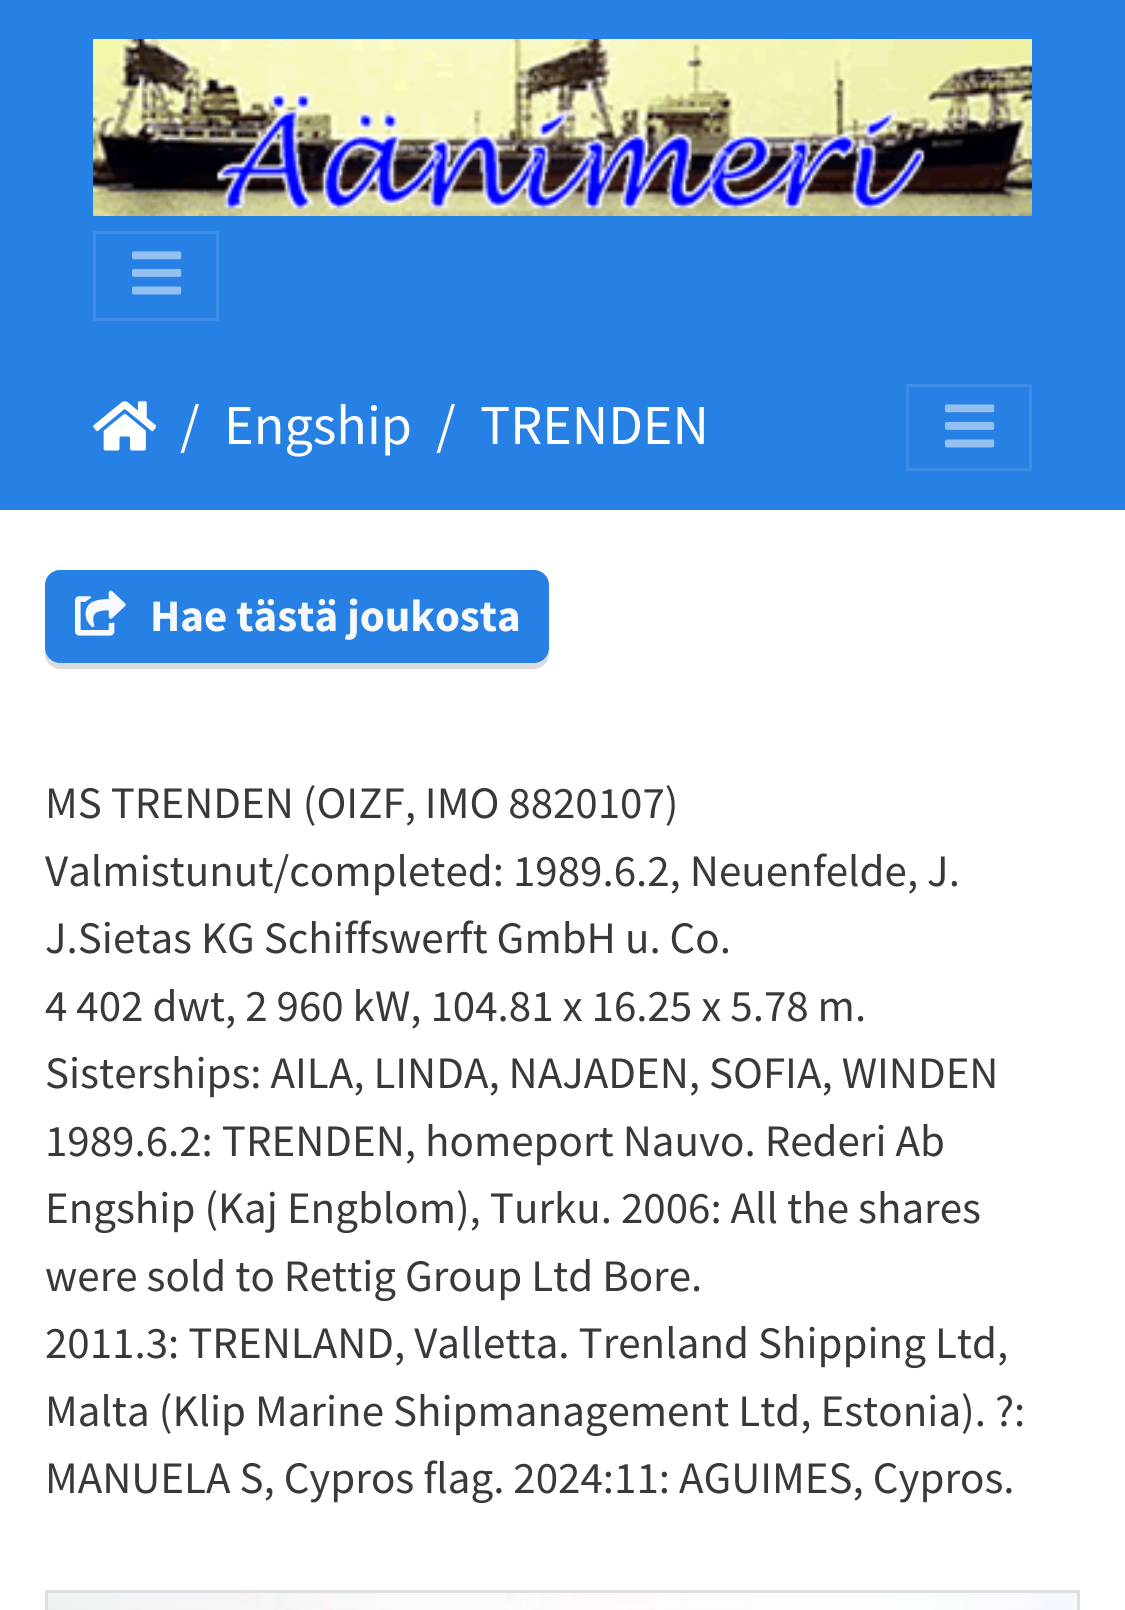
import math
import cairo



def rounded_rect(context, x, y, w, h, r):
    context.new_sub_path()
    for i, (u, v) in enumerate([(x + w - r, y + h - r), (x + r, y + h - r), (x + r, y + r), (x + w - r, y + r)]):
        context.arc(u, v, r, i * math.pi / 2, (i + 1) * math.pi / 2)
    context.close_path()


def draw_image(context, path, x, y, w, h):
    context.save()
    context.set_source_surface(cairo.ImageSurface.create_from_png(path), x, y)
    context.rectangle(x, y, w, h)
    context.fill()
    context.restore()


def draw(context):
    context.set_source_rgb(1, 1, 1)
    context.paint()
    context.set_source_rgb(39 / 255, 128 / 255, 227 / 255)
    context.rectangle(0, 0, 1125, 510)
    context.fill()
    draw_image(context, "images/1.png", 93, 39, 939, 177)
    context.rectangle(94.5, 232.5, 123, 87)
    context.set_source_rgb(61 / 255, 141 / 255, 230 / 255)
    context.set_line_width(3)
    context.stroke()
    draw_image(context, "images/2.png", 132, 251, 50, 44)
    draw_image(context, "images/3.png", 93, 401, 63, 50)
    context.rectangle(907.5, 385.5, 123, 84)
    context.stroke()
    draw_image(context, "images/2.png", 945, 404, 50, 44)
    context.set_source_rgb(219 / 255, 219 / 255, 219 / 255)
    context.new_path()
    context.move_to(45, 648)
    context.line_to(45, 654)
    context.curve_to(45, 662, 52, 669, 60, 669)
    context.line_to(534, 669)
    context.curve_to(542, 669, 549, 662, 549, 654)
    context.line_to(549, 648)
    context.curve_to(549, 656, 542, 663, 534, 663)
    context.line_to(60, 663)
    context.curve_to(52, 663, 45, 656, 45, 648)
    context.close_path()
    context.fill()
    context.set_source_rgb(39 / 255, 128 / 255, 227 / 255)
    rounded_rect(context, 45, 570, 504, 93, 15)
    context.fill()
    draw_image(context, "images/4.png", 75, 590, 51, 46)
    context.rectangle(46.5, 1591.5, 1032, 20)
    context.set_source_rgb(223 / 255, 223 / 255, 223 / 255)
    context.stroke()
    draw_image(context, "images/5.png", 48, 1593, 1029, 17)
    context.select_font_face("Source Sans Pro")
    context.set_font_size(56.25)
    context.set_source_rgb(1, 1, 1)
    context.move_to(180, 444)
    context.show_text("/")
    context.move_to(224, 444)
    context.show_text("Engship")
    context.move_to(436, 444)
    context.show_text("/")
    context.move_to(480, 444)
    context.show_text("TRENDEN")
    context.select_font_face("Source Sans Pro", cairo.FontSlant.NORMAL, cairo.FontWeight.BOLD)
    context.set_font_size(45)
    context.set_source_rgb(248 / 255, 249 / 255, 250 / 255)
    context.move_to(150, 631)
    context.show_text("Hae tästä joukosta")
    context.select_font_face("Source Sans Pro")
    context.set_source_rgb(55 / 255, 58 / 255, 60 / 255)
    context.move_to(45, 818)
    context.show_text("MS TRENDEN (OIZF, IMO 8820107)")
    context.move_to(45, 886)
    context.show_text("Valmistunut/completed: 1989.6.2, Neuenfelde, J.")
    context.move_to(45, 953)
    context.show_text("J.Sietas KG Schiffswerft GmbH u. Co.")
    context.move_to(45, 1021)
    context.show_text("4 402 dwt, 2 960 kW, 104.81 x 16.25 x 5.78 m.")
    context.move_to(45, 1088)
    context.show_text("Sisterships: AILA, LINDA, NAJADEN, SOFIA, WINDEN")
    context.move_to(45, 1156)
    context.show_text("1989.6.2: TRENDEN, homeport Nauvo. Rederi Ab")
    context.move_to(45, 1223)
    context.show_text("Engship (Kaj Engblom), Turku. 2006: All the shares")
    context.move_to(45, 1291)
    context.show_text("were sold to Rettig Group Ltd Bore.")
    context.move_to(45, 1358)
    context.show_text("2011.3: TRENLAND, Valletta. Trenland Shipping Ltd,")
    context.move_to(45, 1426)
    context.show_text("Malta (Klip Marine Shipmanagement Ltd, Estonia). ?:")
    context.move_to(45, 1493)
    context.show_text("MANUELA S, Cypros flag. 2024:11: AGUIMES, Cypros.")


surface = cairo.ImageSurface(cairo.Format.RGB24, 1125, 1610)
context = cairo.Context(surface)
options = cairo.FontOptions()
options.set_hint_metrics(cairo.HintMetrics.OFF)
options.set_hint_style(cairo.HintStyle.NONE)
context.set_font_options(options)
context.set_miter_limit(4)
draw(context)
surface.write_to_png("out.png")
